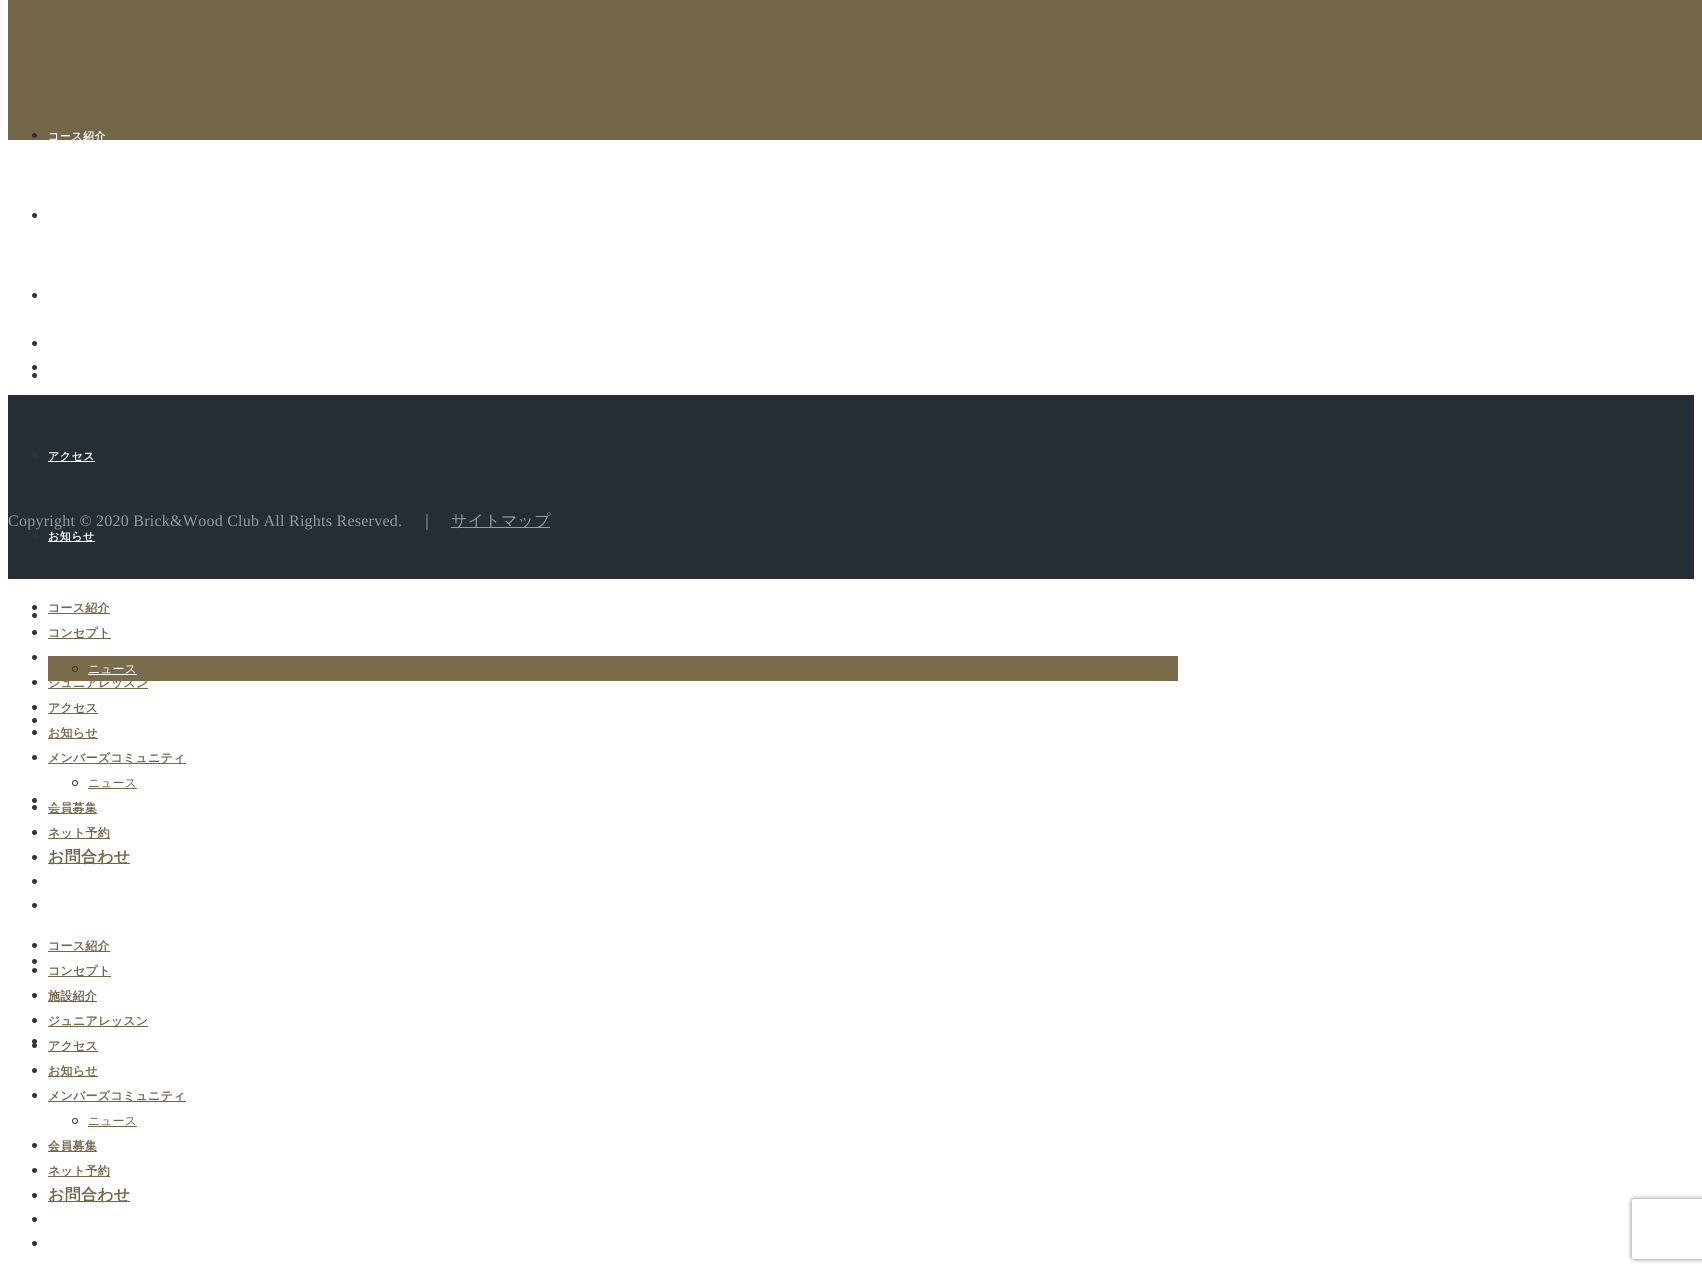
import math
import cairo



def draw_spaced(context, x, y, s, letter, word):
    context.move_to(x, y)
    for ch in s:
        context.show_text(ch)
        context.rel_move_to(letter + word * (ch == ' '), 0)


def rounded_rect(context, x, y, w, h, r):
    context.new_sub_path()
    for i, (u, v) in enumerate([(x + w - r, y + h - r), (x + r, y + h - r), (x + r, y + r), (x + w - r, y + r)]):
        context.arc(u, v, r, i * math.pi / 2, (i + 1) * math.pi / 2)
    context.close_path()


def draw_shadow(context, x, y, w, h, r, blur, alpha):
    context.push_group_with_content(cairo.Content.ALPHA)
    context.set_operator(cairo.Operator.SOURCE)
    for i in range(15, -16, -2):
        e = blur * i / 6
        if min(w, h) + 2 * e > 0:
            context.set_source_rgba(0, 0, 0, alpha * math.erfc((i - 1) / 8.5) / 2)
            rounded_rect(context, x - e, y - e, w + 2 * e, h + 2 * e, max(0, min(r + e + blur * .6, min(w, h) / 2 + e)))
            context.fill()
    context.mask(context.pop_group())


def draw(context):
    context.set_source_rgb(1, 1, 1)
    context.paint()
    context.set_source_rgb(51 / 255, 51 / 255, 51 / 255)
    context.arc(34.5, 343.5, 2.5, 0, 2 * math.pi)
    context.fill()
    context.arc(34.5, 367.5, 2.5, 0, 2 * math.pi)
    context.fill()
    context.set_source_rgb(116 / 255, 102 / 255, 72 / 255)
    context.rectangle(8, 0, 1694, 140)
    context.fill()
    context.set_source_rgb(51 / 255, 51 / 255, 51 / 255)
    context.arc(34.5, 135.5, 2.5, 0, 2 * math.pi)
    context.fill()
    context.arc(34.5, 215.5, 2.5, 0, 2 * math.pi)
    context.fill()
    context.arc(34.5, 295.5, 2.5, 0, 2 * math.pi)
    context.fill()
    context.arc(34.5, 375.5, 2.5, 0, 2 * math.pi)
    context.fill()
    context.set_source_rgb(37 / 255, 46 / 255, 51 / 255)
    context.rectangle(8, 395, 1686, 184)
    context.fill()
    context.set_source_rgb(51 / 255, 51 / 255, 51 / 255)
    context.arc(34.5, 455.5, 2.5, 0, 2 * math.pi)
    context.fill()
    context.set_source_rgb(1, 1, 1)
    context.rectangle(48, 461, 47, 1)
    context.fill()
    context.set_source_rgb(51 / 255, 51 / 255, 51 / 255)
    context.arc(34.5, 535.5, 2.5, 0, 2 * math.pi)
    context.fill()
    context.set_source_rgb(1, 1, 1)
    context.rectangle(48, 541, 47, 1)
    context.fill()
    context.set_source_rgb(51 / 255, 51 / 255, 51 / 255)
    context.arc(34.5, 615.5, 2.5, 0, 2 * math.pi)
    context.fill()
    context.arc(34.5, 720.5, 2.5, 0, 2 * math.pi)
    context.fill()
    context.arc(34.5, 800.5, 2.5, 0, 2 * math.pi)
    context.fill()
    context.arc(34.5, 881.5, 2.5, 0, 2 * math.pi)
    context.fill()
    context.arc(34.5, 961.5, 2.5, 0, 2 * math.pi)
    context.fill()
    context.arc(34.5, 1045.5, 2.5, 0, 2 * math.pi)
    context.fill()
    context.arc(34.5, 1041.5, 2.5, 0, 2 * math.pi)
    context.fill()
    context.set_source_rgb(148 / 255, 153 / 255, 166 / 255)
    context.rectangle(451, 527, 99, 1)
    context.fill()
    context.set_source_rgb(51 / 255, 51 / 255, 51 / 255)
    context.arc(34.5, 607.5, 2.5, 0, 2 * math.pi)
    context.fill()
    context.set_source_rgb(116 / 255, 102 / 255, 72 / 255)
    context.rectangle(48, 613, 62, 1)
    context.fill()
    context.set_source_rgb(51 / 255, 51 / 255, 51 / 255)
    context.arc(34.5, 632.5, 2.5, 0, 2 * math.pi)
    context.fill()
    context.set_source_rgb(116 / 255, 102 / 255, 72 / 255)
    context.rectangle(48, 638, 63, 1)
    context.fill()
    context.set_source_rgb(51 / 255, 51 / 255, 51 / 255)
    context.arc(34.5, 657.5, 2.5, 0, 2 * math.pi)
    context.fill()
    context.arc(34.5, 682.5, 2.5, 0, 2 * math.pi)
    context.fill()
    context.set_source_rgb(116 / 255, 102 / 255, 72 / 255)
    context.rectangle(48, 688, 100, 1)
    context.fill()
    context.set_source_rgb(51 / 255, 51 / 255, 51 / 255)
    context.arc(34.5, 707.5, 2.5, 0, 2 * math.pi)
    context.fill()
    context.set_source_rgb(116 / 255, 102 / 255, 72 / 255)
    context.rectangle(48, 713, 50, 1)
    context.fill()
    context.set_source_rgb(51 / 255, 51 / 255, 51 / 255)
    context.arc(34.5, 732.5, 2.5, 0, 2 * math.pi)
    context.fill()
    context.set_source_rgb(116 / 255, 102 / 255, 72 / 255)
    context.rectangle(48, 738, 50, 1)
    context.fill()
    context.set_source_rgb(51 / 255, 51 / 255, 51 / 255)
    context.arc(34.5, 757.5, 2.5, 0, 2 * math.pi)
    context.fill()
    context.set_source_rgb(116 / 255, 102 / 255, 72 / 255)
    context.rectangle(48, 763, 138, 1)
    context.fill()
    context.arc(75, 783, 2.5, 0, 2 * math.pi)
    context.set_source_rgb(51 / 255, 51 / 255, 51 / 255)
    context.set_line_width(1)
    context.stroke()
    context.set_source_rgb(116 / 255, 102 / 255, 72 / 255)
    context.rectangle(88, 788, 49, 1)
    context.fill()
    context.set_source_rgb(51 / 255, 51 / 255, 51 / 255)
    context.arc(34.5, 807.5, 2.5, 0, 2 * math.pi)
    context.fill()
    context.set_source_rgb(116 / 255, 102 / 255, 72 / 255)
    context.rectangle(48, 813, 49, 1)
    context.fill()
    context.set_source_rgb(51 / 255, 51 / 255, 51 / 255)
    context.arc(34.5, 832.5, 2.5, 0, 2 * math.pi)
    context.fill()
    context.set_source_rgb(116 / 255, 102 / 255, 72 / 255)
    context.rectangle(48, 838, 62, 1)
    context.fill()
    context.set_source_rgb(51 / 255, 51 / 255, 51 / 255)
    context.arc(34.5, 857.5, 2.5, 0, 2 * math.pi)
    context.fill()
    context.set_source_rgb(116 / 255, 102 / 255, 72 / 255)
    context.rectangle(48, 863, 82, 1)
    context.fill()
    context.set_source_rgb(51 / 255, 51 / 255, 51 / 255)
    context.arc(34.5, 905.5, 2.5, 0, 2 * math.pi)
    context.fill()
    context.arc(34.5, 945.5, 2.5, 0, 2 * math.pi)
    context.fill()
    context.set_source_rgb(116 / 255, 102 / 255, 72 / 255)
    context.rectangle(48, 951, 62, 1)
    context.fill()
    context.set_source_rgb(51 / 255, 51 / 255, 51 / 255)
    context.arc(34.5, 970.5, 2.5, 0, 2 * math.pi)
    context.fill()
    context.set_source_rgb(116 / 255, 102 / 255, 72 / 255)
    context.rectangle(48, 976, 63, 1)
    context.fill()
    context.set_source_rgb(51 / 255, 51 / 255, 51 / 255)
    context.arc(34.5, 995.5, 2.5, 0, 2 * math.pi)
    context.fill()
    context.set_source_rgb(116 / 255, 102 / 255, 72 / 255)
    context.rectangle(48, 1001, 49, 1)
    context.fill()
    context.set_source_rgb(51 / 255, 51 / 255, 51 / 255)
    context.arc(34.5, 1020.5, 2.5, 0, 2 * math.pi)
    context.fill()
    context.set_source_rgb(116 / 255, 102 / 255, 72 / 255)
    context.rectangle(48, 1026, 100, 1)
    context.fill()
    context.rectangle(48, 1051, 50, 1)
    context.fill()
    context.set_source_rgb(51 / 255, 51 / 255, 51 / 255)
    context.arc(34.5, 1070.5, 2.5, 0, 2 * math.pi)
    context.fill()
    context.set_source_rgb(116 / 255, 102 / 255, 72 / 255)
    context.rectangle(48, 1076, 50, 1)
    context.fill()
    context.set_source_rgb(51 / 255, 51 / 255, 51 / 255)
    context.arc(34.5, 1095.5, 2.5, 0, 2 * math.pi)
    context.fill()
    context.set_source_rgb(116 / 255, 102 / 255, 72 / 255)
    context.rectangle(48, 1101, 138, 1)
    context.fill()
    context.arc(75, 1121, 2.5, 0, 2 * math.pi)
    context.set_source_rgb(51 / 255, 51 / 255, 51 / 255)
    context.stroke()
    context.set_source_rgb(116 / 255, 102 / 255, 72 / 255)
    context.rectangle(88, 1126, 49, 1)
    context.fill()
    context.set_source_rgb(51 / 255, 51 / 255, 51 / 255)
    context.arc(34.5, 1145.5, 2.5, 0, 2 * math.pi)
    context.fill()
    context.set_source_rgb(116 / 255, 102 / 255, 72 / 255)
    context.rectangle(48, 1151, 49, 1)
    context.fill()
    context.set_source_rgb(51 / 255, 51 / 255, 51 / 255)
    context.arc(34.5, 1170.5, 2.5, 0, 2 * math.pi)
    context.fill()
    context.set_source_rgb(116 / 255, 102 / 255, 72 / 255)
    context.rectangle(48, 1176, 62, 1)
    context.fill()
    context.set_source_rgb(51 / 255, 51 / 255, 51 / 255)
    context.arc(34.5, 1195.5, 2.5, 0, 2 * math.pi)
    context.fill()
    context.set_source_rgb(116 / 255, 102 / 255, 72 / 255)
    context.rectangle(48, 1201, 82, 1)
    context.fill()
    context.set_source_rgb(51 / 255, 51 / 255, 51 / 255)
    context.arc(34.5, 1219.5, 2.5, 0, 2 * math.pi)
    context.fill()
    context.arc(34.5, 1243.5, 2.5, 0, 2 * math.pi)
    context.fill()
    context.save()
    context.set_fill_rule(cairo.FillRule.EVEN_ODD)
    context.new_path()
    context.move_to(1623, 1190)
    context.line_to(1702, 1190)
    context.line_to(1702, 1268)
    context.line_to(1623, 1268)
    context.close_path()
    context.move_to(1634, 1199)
    context.line_to(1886, 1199)
    context.curve_to(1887, 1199, 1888, 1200, 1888, 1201)
    context.line_to(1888, 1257)
    context.curve_to(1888, 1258, 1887, 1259, 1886, 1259)
    context.line_to(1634, 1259)
    context.curve_to(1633, 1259, 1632, 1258, 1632, 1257)
    context.line_to(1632, 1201)
    context.curve_to(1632, 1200, 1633, 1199, 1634, 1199)
    context.close_path()
    context.clip()
    context.set_source_rgb(128 / 255, 128 / 255, 128 / 255)
    draw_shadow(context, 1632, 1199, 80, 60, 2, 2.5, 1)
    context.restore()
    context.select_font_face("WenQuanYi Zen Hei", cairo.FontSlant.NORMAL, cairo.FontWeight.BOLD)
    context.set_font_size(11)
    context.set_source_rgb(1, 1, 1)
    draw_spaced(context, 48, 140, "コース紹介", 0.5, 0)
    draw_spaced(context, 48, 460, "アクセス", 0.5, 0)
    draw_spaced(context, 48, 540, "お知らせ", 0.5, 0)
    context.select_font_face("Liberation Serif")
    context.set_font_size(16)
    context.set_source_rgb(148 / 255, 153 / 255, 166 / 255)
    draw_spaced(context, 8, 526, "Copyright © 2020 Brick&Wood Club All Rights Reserved.", 0.25, 0)
    context.select_font_face("WenQuanYi Zen Hei Medium")
    draw_spaced(context, 419, 526, "｜", 0.25, 0)
    draw_spaced(context, 451, 526, "サイトマップ", 0.25, 0)
    context.select_font_face("WenQuanYi Zen Hei", cairo.FontSlant.NORMAL, cairo.FontWeight.BOLD)
    context.set_font_size(12)
    context.set_source_rgb(116 / 255, 102 / 255, 72 / 255)
    draw_spaced(context, 48, 612, "コース紹介", 0.25, 0)
    draw_spaced(context, 48, 637, "コンセプト", 0.25, 0)
    draw_spaced(context, 48, 687, "ジュニアレッスン", 0.25, 0)
    context.set_source_rgb(122 / 255, 107 / 255, 75 / 255)
    context.rectangle(48, 656, 1130, 25)
    context.fill()
    context.select_font_face("WenQuanYi Zen Hei Medium")
    context.set_source_rgb(1, 1, 1)
    context.move_to(88, 673)
    context.show_text("ニュース")
    context.rectangle(88, 674, 49, 1)
    context.fill()
    context.arc(75, 669, 2.5, 0, 2 * math.pi)
    context.set_source_rgb(51 / 255, 51 / 255, 51 / 255)
    context.stroke()
    context.select_font_face("WenQuanYi Zen Hei", cairo.FontSlant.NORMAL, cairo.FontWeight.BOLD)
    context.set_source_rgb(116 / 255, 102 / 255, 72 / 255)
    draw_spaced(context, 48, 712, "アクセス", 0.25, 0)
    draw_spaced(context, 48, 737, "お知らせ", 0.25, 0)
    draw_spaced(context, 48, 762, "メンバーズコミュニティ", 0.25, 0)
    context.select_font_face("WenQuanYi Zen Hei Medium")
    context.move_to(88, 787)
    context.show_text("ニュース")
    context.select_font_face("WenQuanYi Zen Hei", cairo.FontSlant.NORMAL, cairo.FontWeight.BOLD)
    draw_spaced(context, 48, 812, "会員募集", 0.25, 0)
    context.set_source_rgb(1, 1, 1)
    context.rectangle(48, 806, 47, 1)
    context.fill()
    context.set_source_rgb(116 / 255, 102 / 255, 72 / 255)
    draw_spaced(context, 48, 837, "ネット予約", 0.25, 0)
    context.set_font_size(16)
    draw_spaced(context, 48, 862, "お問合わせ", 0.25, 0)
    context.set_font_size(12)
    draw_spaced(context, 48, 950, "コース紹介", 0.25, 0)
    draw_spaced(context, 48, 975, "コンセプト", 0.25, 0)
    draw_spaced(context, 48, 1000, "施設紹介", 0.25, 0)
    draw_spaced(context, 48, 1025, "ジュニアレッスン", 0.25, 0)
    draw_spaced(context, 48, 1050, "アクセス", 0.25, 0)
    draw_spaced(context, 48, 1075, "お知らせ", 0.25, 0)
    draw_spaced(context, 48, 1100, "メンバーズコミュニティ", 0.25, 0)
    context.select_font_face("WenQuanYi Zen Hei Medium")
    context.move_to(88, 1125)
    context.show_text("ニュース")
    context.select_font_face("WenQuanYi Zen Hei", cairo.FontSlant.NORMAL, cairo.FontWeight.BOLD)
    draw_spaced(context, 48, 1150, "会員募集", 0.25, 0)
    draw_spaced(context, 48, 1175, "ネット予約", 0.25, 0)
    context.set_font_size(16)
    draw_spaced(context, 48, 1200, "お問合わせ", 0.25, 0)


surface = cairo.ImageSurface(cairo.Format.RGB24, 1702, 1273)
context = cairo.Context(surface)
options = cairo.FontOptions()
options.set_hint_metrics(cairo.HintMetrics.OFF)
options.set_hint_style(cairo.HintStyle.NONE)
context.set_font_options(options)
context.set_miter_limit(4)
draw(context)
surface.write_to_png("out.png")
